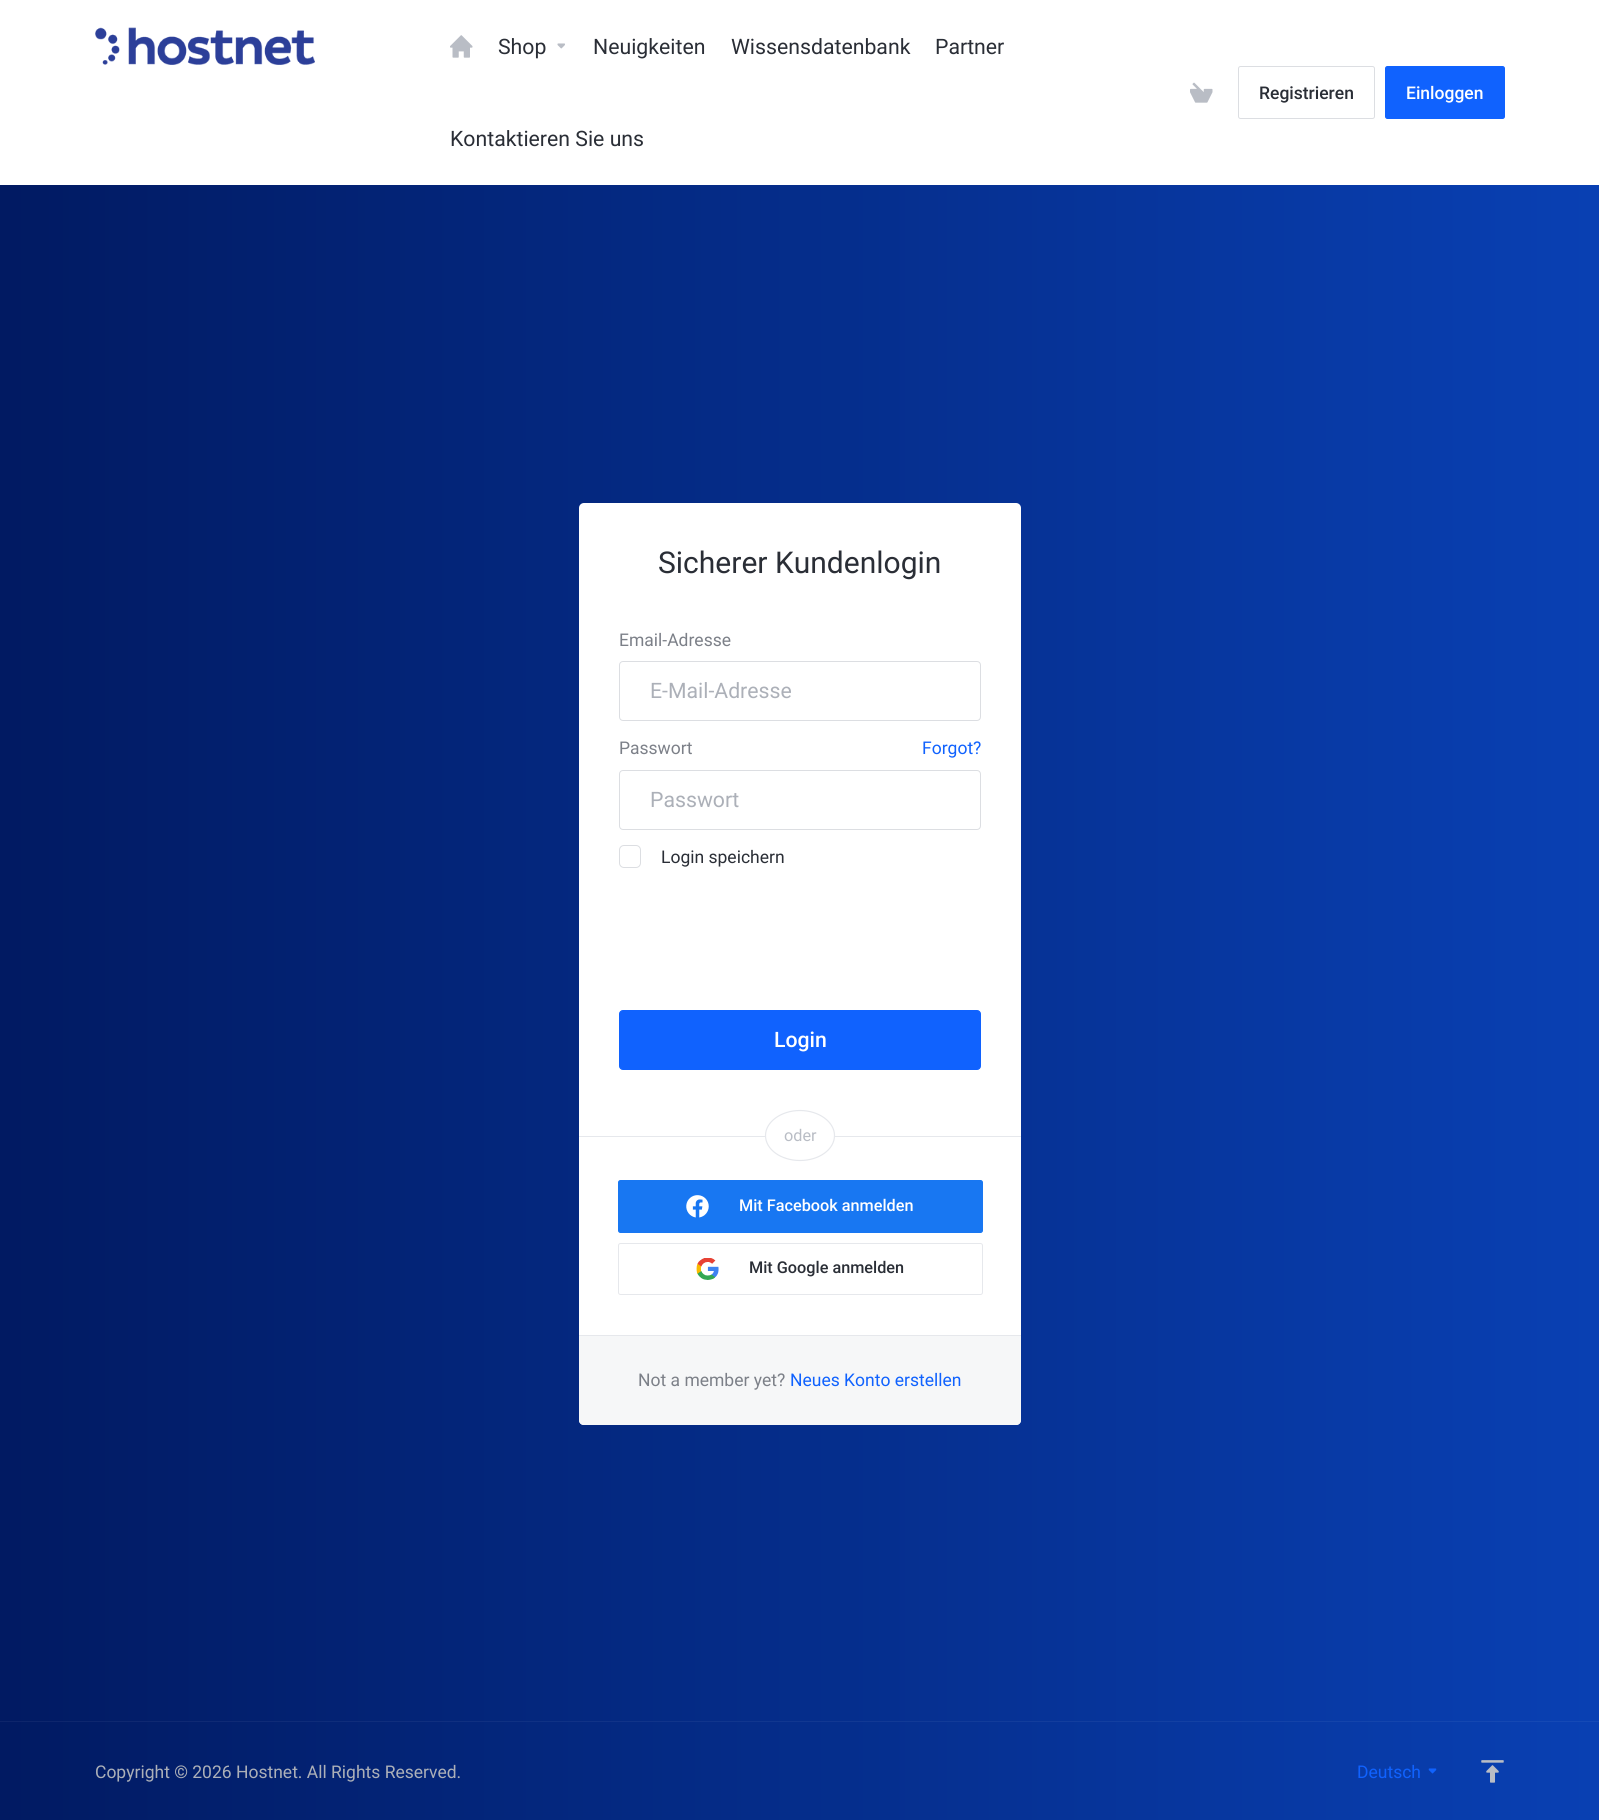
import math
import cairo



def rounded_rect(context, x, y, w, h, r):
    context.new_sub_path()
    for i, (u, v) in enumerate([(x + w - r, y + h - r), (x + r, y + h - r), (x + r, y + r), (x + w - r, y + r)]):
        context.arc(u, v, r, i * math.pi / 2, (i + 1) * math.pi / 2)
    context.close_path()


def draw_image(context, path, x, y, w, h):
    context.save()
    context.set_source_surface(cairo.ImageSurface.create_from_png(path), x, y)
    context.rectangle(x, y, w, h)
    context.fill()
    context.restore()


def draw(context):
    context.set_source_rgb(1, 1, 1)
    context.paint()
    draw_image(context, "images/1.png", 95, 27, 220, 38)
    draw_image(context, "images/2.png", 450, 35, 23, 23)
    draw_image(context, "images/3.png", 557, 43, 8, 6)
    draw_image(context, "images/4.png", 1190, 82, 23, 21)
    rounded_rect(context, 1238.5, 66.5, 136, 52, 2)
    context.set_source_rgb(220 / 255, 222 / 255, 226 / 255)
    context.set_line_width(1)
    context.stroke()
    context.set_source_rgb(16 / 255, 98 / 255, 254 / 255)
    rounded_rect(context, 1385.5, 66.5, 119, 52, 2)
    context.fill_preserve()
    context.stroke()
    gradient = cairo.LinearGradient(0, 953, 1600, 953)
    gradient.add_color_stop_rgba(0, 1 / 255, 26 / 255, 98 / 255, 1)
    gradient.add_color_stop_rgba(1, 9 / 255, 64 / 255, 179 / 255, 1)
    context.set_source(gradient)
    context.rectangle(0, 185, 1599, 1536)
    context.fill()
    context.set_source_rgb(1, 1, 1)
    rounded_rect(context, 579, 503, 442, 922, 5)
    context.fill()
    rounded_rect(context, 619.5, 661.5, 361, 59, 3.5)
    context.set_source_rgb(220 / 255, 222 / 255, 226 / 255)
    context.stroke()
    rounded_rect(context, 619.5, 770.5, 361, 59, 3.5)
    context.stroke()
    rounded_rect(context, 619.5, 845.5, 21, 22, 4.5)
    context.stroke()
    context.set_source_rgb(16 / 255, 98 / 255, 254 / 255)
    rounded_rect(context, 619.5, 1010.5, 361, 59, 3.5)
    context.fill_preserve()
    context.stroke()
    context.set_source_rgb(230 / 255, 232 / 255, 236 / 255)
    context.rectangle(579, 1136, 442, 1)
    context.fill()
    context.set_source_rgb(1, 1, 1)
    context.new_path()
    context.move_to(800, 1110)
    context.curve_to(819.5, 1110, 835, 1121.5, 835, 1135.5)
    context.curve_to(835, 1149.5, 819.5, 1161, 800, 1161)
    context.curve_to(780.5, 1161, 765, 1149.5, 765, 1135.5)
    context.curve_to(765, 1121.5, 780.5, 1110, 800, 1110)
    context.close_path()
    context.fill()
    context.new_path()
    context.move_to(800, 1110.5)
    context.curve_to(819, 1110.5, 834.5, 1122, 834.5, 1135.5)
    context.curve_to(834.5, 1149.5, 819, 1160.5, 800, 1160.5)
    context.curve_to(781, 1160.5, 765.5, 1149.5, 765.5, 1135.5)
    context.curve_to(765.5, 1122, 781, 1110.5, 800, 1110.5)
    context.close_path()
    context.set_source_rgb(230 / 255, 232 / 255, 236 / 255)
    context.set_line_width(1.2)
    context.stroke()
    context.set_source_rgb(24 / 255, 119 / 255, 242 / 255)
    rounded_rect(context, 618.5, 1180.5, 364, 52, 2)
    context.fill_preserve()
    context.set_line_width(1)
    context.stroke()
    draw_image(context, "images/5.png", 686, 1195, 23, 23)
    rounded_rect(context, 618.5, 1243.5, 364, 51, 2)
    context.set_source_rgb(230 / 255, 232 / 255, 236 / 255)
    context.stroke()
    draw_image(context, "images/6.png", 696, 1258, 23, 22)
    context.set_source_rgb(246 / 255, 247 / 255, 248 / 255)
    context.new_path()
    context.move_to(579, 1335)
    context.line_to(1021, 1335)
    context.line_to(1021, 1420)
    context.curve_to(1021, 1423, 1019, 1425, 1016, 1425)
    context.line_to(584, 1425)
    context.curve_to(581, 1425, 579, 1423, 579, 1420)
    context.close_path()
    context.fill()
    context.set_source_rgb(230 / 255, 232 / 255, 236 / 255)
    context.rectangle(579, 1335, 442, 1)
    context.fill()
    gradient = cairo.LinearGradient(0, 1771, 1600, 1771)
    gradient.add_color_stop_rgba(0, 1 / 255, 26 / 255, 98 / 255, 1)
    gradient.add_color_stop_rgba(1, 9 / 255, 64 / 255, 179 / 255, 1)
    context.set_source(gradient)
    context.rectangle(0, 1722, 1599, 98)
    context.fill()
    gradient = cairo.LinearGradient(0, 1771, 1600, 1771)
    gradient.add_color_stop_rgba(0, 14 / 255, 37 / 255, 106 / 255, 1)
    gradient.add_color_stop_rgba(1, 21 / 255, 74 / 255, 183 / 255, 1)
    context.set_source(gradient)
    context.rectangle(0, 1721, 1599, 1)
    context.fill()
    draw_image(context, "images/7.png", 1428, 1768, 9, 6)
    draw_image(context, "images/8.png", 1481, 1760, 23, 23)
    context.select_font_face("Roboto")
    context.set_font_size(21.25)
    context.set_source_rgb(42 / 255, 46 / 255, 54 / 255)
    context.move_to(498, 54)
    context.show_text("Shop")
    context.move_to(593, 54)
    context.show_text("Neuigkeiten")
    context.move_to(731, 54)
    context.show_text("Wissensdatenbank")
    context.move_to(935, 54)
    context.show_text("Partner")
    context.move_to(450, 146)
    context.show_text("Kontaktieren Sie uns")
    context.select_font_face("Roboto Medium")
    context.set_font_size(17.5)
    context.move_to(1259, 99)
    context.show_text("Registrieren")
    context.set_source_rgb(1, 1, 1)
    context.move_to(1406, 99)
    context.show_text("Einloggen")
    context.select_font_face("Roboto")
    context.set_font_size(30)
    context.set_source_rgb(42 / 255, 46 / 255, 54 / 255)
    context.move_to(658, 573)
    context.show_text("Sicherer Kundenlogin")
    context.set_font_size(17.5)
    context.set_source_rgb(124 / 255, 128 / 255, 136 / 255)
    context.move_to(619, 646)
    context.show_text("Email-Adresse")
    context.set_font_size(21.25)
    context.set_source_rgb(172 / 255, 176 / 255, 184 / 255)
    context.move_to(650, 698)
    context.show_text("E-Mail-Adresse")
    context.set_font_size(17.5)
    context.set_source_rgb(124 / 255, 128 / 255, 136 / 255)
    context.move_to(619, 754)
    context.show_text("Passwort")
    context.set_source_rgb(16 / 255, 98 / 255, 254 / 255)
    context.move_to(922, 754)
    context.show_text("Forgot?")
    context.set_font_size(21.25)
    context.set_source_rgb(172 / 255, 176 / 255, 184 / 255)
    context.move_to(650, 807)
    context.show_text("Passwort")
    context.set_font_size(17.5)
    context.set_source_rgb(42 / 255, 46 / 255, 54 / 255)
    context.move_to(661, 863)
    context.show_text("Login speichern")
    context.select_font_face("Roboto Medium")
    context.set_font_size(21.25)
    context.set_source_rgb(1, 1, 1)
    context.move_to(774, 1047)
    context.show_text("Login")
    context.select_font_face("Roboto")
    context.set_font_size(16.25)
    context.set_source_rgb(185 / 255, 189 / 255, 197 / 255)
    context.move_to(784, 1141)
    context.show_text("oder")
    context.select_font_face("Roboto Medium")
    context.set_source_rgb(1, 1, 1)
    context.move_to(739, 1211)
    context.show_text("Mit Facebook anmelden")
    context.set_source_rgb(42 / 255, 46 / 255, 54 / 255)
    context.move_to(749, 1273)
    context.show_text("Mit Google anmelden")
    context.select_font_face("Roboto")
    context.set_font_size(17.5)
    context.set_source_rgb(124 / 255, 128 / 255, 136 / 255)
    context.move_to(638, 1386)
    context.show_text("Not a member yet?")
    context.set_source_rgb(16 / 255, 98 / 255, 254 / 255)
    context.move_to(790, 1386)
    context.show_text("Neues Konto erstellen")
    context.set_source_rgb(172 / 255, 176 / 255, 184 / 255)
    context.move_to(95, 1778)
    context.show_text("Copyright © 2026 Hostnet. All Rights Reserved.")
    context.set_source_rgb(16 / 255, 98 / 255, 254 / 255)
    context.move_to(1357, 1778)
    context.show_text("Deutsch")


surface = cairo.ImageSurface(cairo.Format.RGB24, 1599, 1820)
context = cairo.Context(surface)
options = cairo.FontOptions()
options.set_hint_metrics(cairo.HintMetrics.OFF)
options.set_hint_style(cairo.HintStyle.NONE)
context.set_font_options(options)
context.set_miter_limit(4)
draw(context)
surface.write_to_png("out.png")
